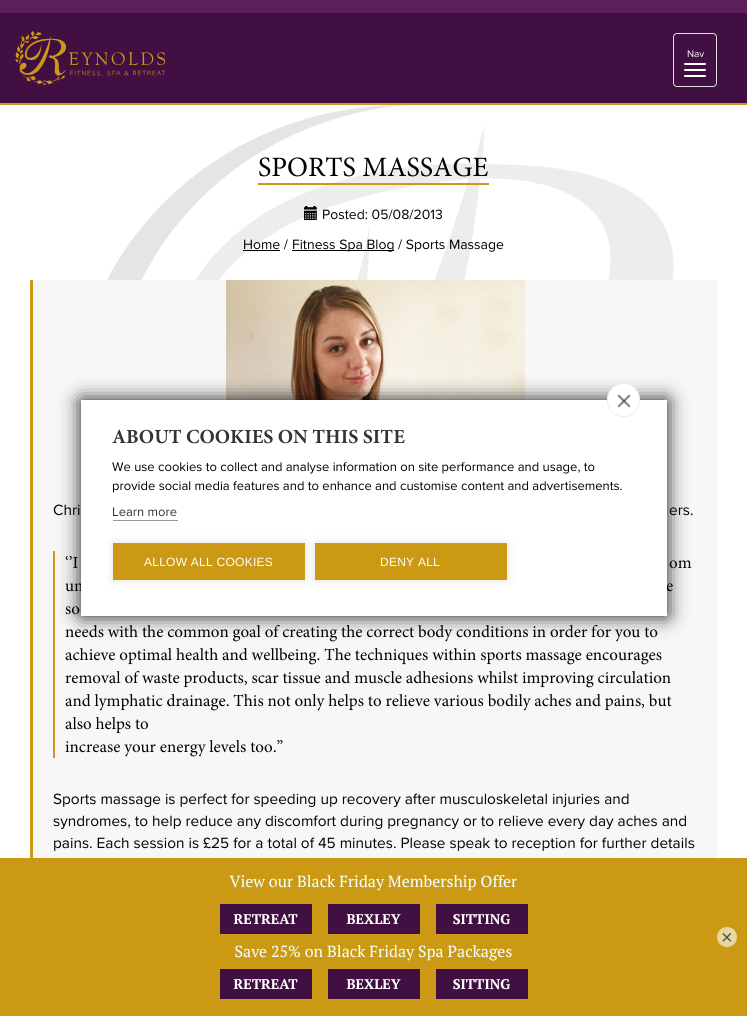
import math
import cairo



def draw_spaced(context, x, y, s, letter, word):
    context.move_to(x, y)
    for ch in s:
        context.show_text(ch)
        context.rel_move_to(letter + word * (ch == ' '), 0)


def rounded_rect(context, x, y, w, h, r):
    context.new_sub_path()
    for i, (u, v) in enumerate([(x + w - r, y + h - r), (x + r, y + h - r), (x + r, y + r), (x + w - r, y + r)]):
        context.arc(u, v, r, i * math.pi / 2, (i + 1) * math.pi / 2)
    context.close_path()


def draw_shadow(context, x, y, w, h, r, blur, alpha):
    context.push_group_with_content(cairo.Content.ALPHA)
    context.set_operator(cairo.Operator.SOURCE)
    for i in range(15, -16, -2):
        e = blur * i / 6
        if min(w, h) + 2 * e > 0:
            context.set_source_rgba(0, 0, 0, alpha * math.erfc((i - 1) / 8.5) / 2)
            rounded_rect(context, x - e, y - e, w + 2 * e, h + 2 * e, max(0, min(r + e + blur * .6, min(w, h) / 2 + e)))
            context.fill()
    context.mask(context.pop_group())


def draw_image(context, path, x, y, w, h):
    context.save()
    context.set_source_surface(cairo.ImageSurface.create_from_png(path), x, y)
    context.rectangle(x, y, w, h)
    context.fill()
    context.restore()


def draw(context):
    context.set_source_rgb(1, 1, 1)
    context.paint()
    context.set_source_rgb(66 / 255, 15 / 255, 66 / 255)
    context.rectangle(0, 13, 747, 90)
    context.fill()
    context.set_source_rgb(203 / 255, 153 / 255, 19 / 255)
    context.rectangle(0, 103, 747, 2)
    context.fill()
    context.set_source_rgb(93 / 255, 31 / 255, 92 / 255)
    context.rectangle(0, 0, 747, 13)
    context.fill()
    draw_image(context, "images/1.png", 15, 31, 150, 54)
    rounded_rect(context, 673.5, 33.5, 43, 53, 3.5)
    context.set_source_rgb(221 / 255, 221 / 255, 221 / 255)
    context.set_line_width(1)
    context.stroke()
    context.set_source_rgb(1, 1, 1)
    rounded_rect(context, 684, 63, 22, 2, 1)
    context.fill()
    rounded_rect(context, 684, 69, 22, 2, 1)
    context.fill()
    rounded_rect(context, 684, 75, 22, 2, 1)
    context.fill()
    draw_image(context, "images/2.png", 107, 105, 567, 175)
    context.set_source_rgb(203 / 255, 153 / 255, 19 / 255)
    context.rectangle(258, 183, 231, 2)
    context.fill()
    draw_image(context, "images/3.png", 304, 206, 13, 14)
    context.set_source_rgb(0, 0, 0)
    context.rectangle(243, 250, 37, 1)
    context.fill()
    context.rectangle(292, 250, 102, 1)
    context.fill()
    context.set_source_rgb(247 / 255, 247 / 255, 247 / 255)
    context.rectangle(33, 280, 684, 578)
    context.fill()
    context.set_source_rgb(203 / 255, 153 / 255, 19 / 255)
    context.rectangle(30, 280, 3, 578)
    context.fill()
    draw_image(context, "images/4.png", 226, 280, 299, 120)
    context.rectangle(53, 551, 2, 207)
    context.fill()
    context.set_source_rgb(0, 0, 0)
    draw_shadow(context, 81, 400, 586, 216, 0, 10, 0.9)
    draw_image(context, "images/5.png", 0, 858, 747, 158)
    context.set_source_rgb(234 / 255, 214 / 255, 161 / 255)
    context.arc(727, 937, 10, 0, 2 * math.pi)
    context.fill()
    context.select_font_face("Proxima Nova")
    context.set_font_size(10)
    context.set_source_rgb(1, 1, 1)
    context.move_to(687, 57)
    context.show_text("Nav")
    context.select_font_face("Minion")
    context.set_font_size(28)
    context.set_source_rgb(0, 0, 0)
    context.move_to(258, 176)
    context.show_text("SPORTS MASSAGE")
    context.select_font_face("Proxima Nova")
    context.set_font_size(14)
    context.move_to(322, 219)
    context.show_text("Posted: 05/08/2013")
    context.move_to(243, 249)
    context.show_text("Home /")
    context.move_to(292, 249)
    context.show_text("Fitness Spa Blog / Sports Massage")
    context.set_font_size(15.4)
    context.move_to(53, 515)
    context.show_text("Chri")
    context.move_to(669, 515)
    context.show_text("ers.")
    context.select_font_face("Minion")
    context.set_font_size(16.95)
    context.move_to(65, 568)
    context.show_text("‘’I")
    context.move_to(669, 568)
    context.show_text("om")
    context.move_to(65, 591)
    context.show_text("un")
    context.move_to(666, 591)
    context.show_text("e")
    context.move_to(65, 614)
    context.show_text("so")
    context.move_to(65, 637)
    context.show_text("needs with the common goal of creating the correct body conditions in order for you to")
    context.move_to(65, 660)
    context.show_text("achieve optimal health and wellbeing. The techniques within sports massage encourages")
    context.move_to(65, 683)
    context.show_text("removal of waste products, scar tissue and muscle adhesions whilst improving circulation")
    context.move_to(65, 706)
    context.show_text("and lymphatic drainage. This not only helps to relieve various bodily aches and pains, but")
    context.move_to(65, 729)
    context.show_text("also helps to")
    context.move_to(65, 752)
    context.show_text("increase your energy levels too.”")
    context.select_font_face("Proxima Nova")
    context.set_font_size(15.4)
    context.move_to(53, 804)
    context.show_text("Sports massage is perfect for speeding up recovery after musculoskeletal injuries and")
    context.move_to(53, 826)
    context.show_text("syndromes, to help reduce any discomfort during pregnancy or to relieve every day aches and")
    context.move_to(53, 848)
    context.show_text("pains. Each session is £25 for a total of 45 minutes. Please speak to reception for further details")
    context.set_source_rgb(1, 1, 1)
    context.rectangle(81, 400, 586, 216)
    context.fill()
    rounded_rect(context, 607.5, 383.5, 32, 33, 16)
    context.fill_preserve()
    context.set_source_rgb(238 / 255, 238 / 255, 238 / 255)
    context.stroke()
    context.set_source_rgb(133 / 255, 133 / 255, 133 / 255)
    context.new_path()
    context.move_to(617.5, 406)
    context.line_to(629, 394.5)
    context.line_to(630.5, 396)
    context.line_to(619, 407.5)
    context.close_path()
    context.fill()
    context.set_source_rgba(51 / 255, 51 / 255, 51 / 255, 0.6)
    context.new_path()
    context.move_to(619, 394.5)
    context.line_to(630.5, 406)
    context.line_to(629, 407.5)
    context.line_to(617.5, 396)
    context.close_path()
    context.fill()
    context.select_font_face("Minion", cairo.FontSlant.NORMAL, cairo.FontWeight.BOLD)
    context.set_font_size(20)
    context.set_source_rgb(51 / 255, 51 / 255, 51 / 255)
    context.move_to(112, 443)
    context.show_text("ABOUT COOKIES ON THIS SITE")
    context.select_font_face("Proxima Nova")
    context.set_font_size(13)
    context.set_source_rgb(0, 0, 0)
    context.move_to(112, 471)
    context.show_text("We use cookies to collect and analyse information on site performance and usage, to")
    context.move_to(112, 490)
    context.show_text("provide social media features and to enhance and customise content and advertisements.")
    context.set_source_rgb(51 / 255, 51 / 255, 51 / 255)
    context.move_to(112, 516)
    context.show_text("Learn more")
    context.set_source_rgb(153 / 255, 153 / 255, 153 / 255)
    context.rectangle(113, 520, 65, 1)
    context.fill()
    context.set_source_rgb(0, 0, 0)
    draw_shadow(context, 113, 543, 192, 37, 0, 5, 0.12)
    context.set_source_rgb(203 / 255, 153 / 255, 19 / 255)
    context.rectangle(113, 543, 192, 37)
    context.fill()
    context.select_font_face("Liberation Sans")
    context.set_font_size(12)
    context.set_source_rgb(1, 1, 1)
    draw_spaced(context, 144, 566, "ALLOW ALL COOKIES", 0.25, 0)
    context.set_source_rgb(0, 0, 0)
    draw_shadow(context, 315, 543, 192, 37, 0, 5, 0.12)
    context.set_source_rgb(203 / 255, 153 / 255, 19 / 255)
    context.rectangle(315, 543, 192, 37)
    context.fill()
    context.set_source_rgb(1, 1, 1)
    draw_spaced(context, 380, 566, "DENY ALL", 0.25, 0)
    context.set_font_size(20)
    context.set_source_rgb(82 / 255, 81 / 255, 81 / 255)
    context.move_to(721, 944)
    context.show_text("×")


surface = cairo.ImageSurface(cairo.Format.RGB24, 747, 1016)
context = cairo.Context(surface)
options = cairo.FontOptions()
options.set_hint_metrics(cairo.HintMetrics.OFF)
options.set_hint_style(cairo.HintStyle.NONE)
context.set_font_options(options)
context.set_miter_limit(4)
draw(context)
surface.write_to_png("out.png")
